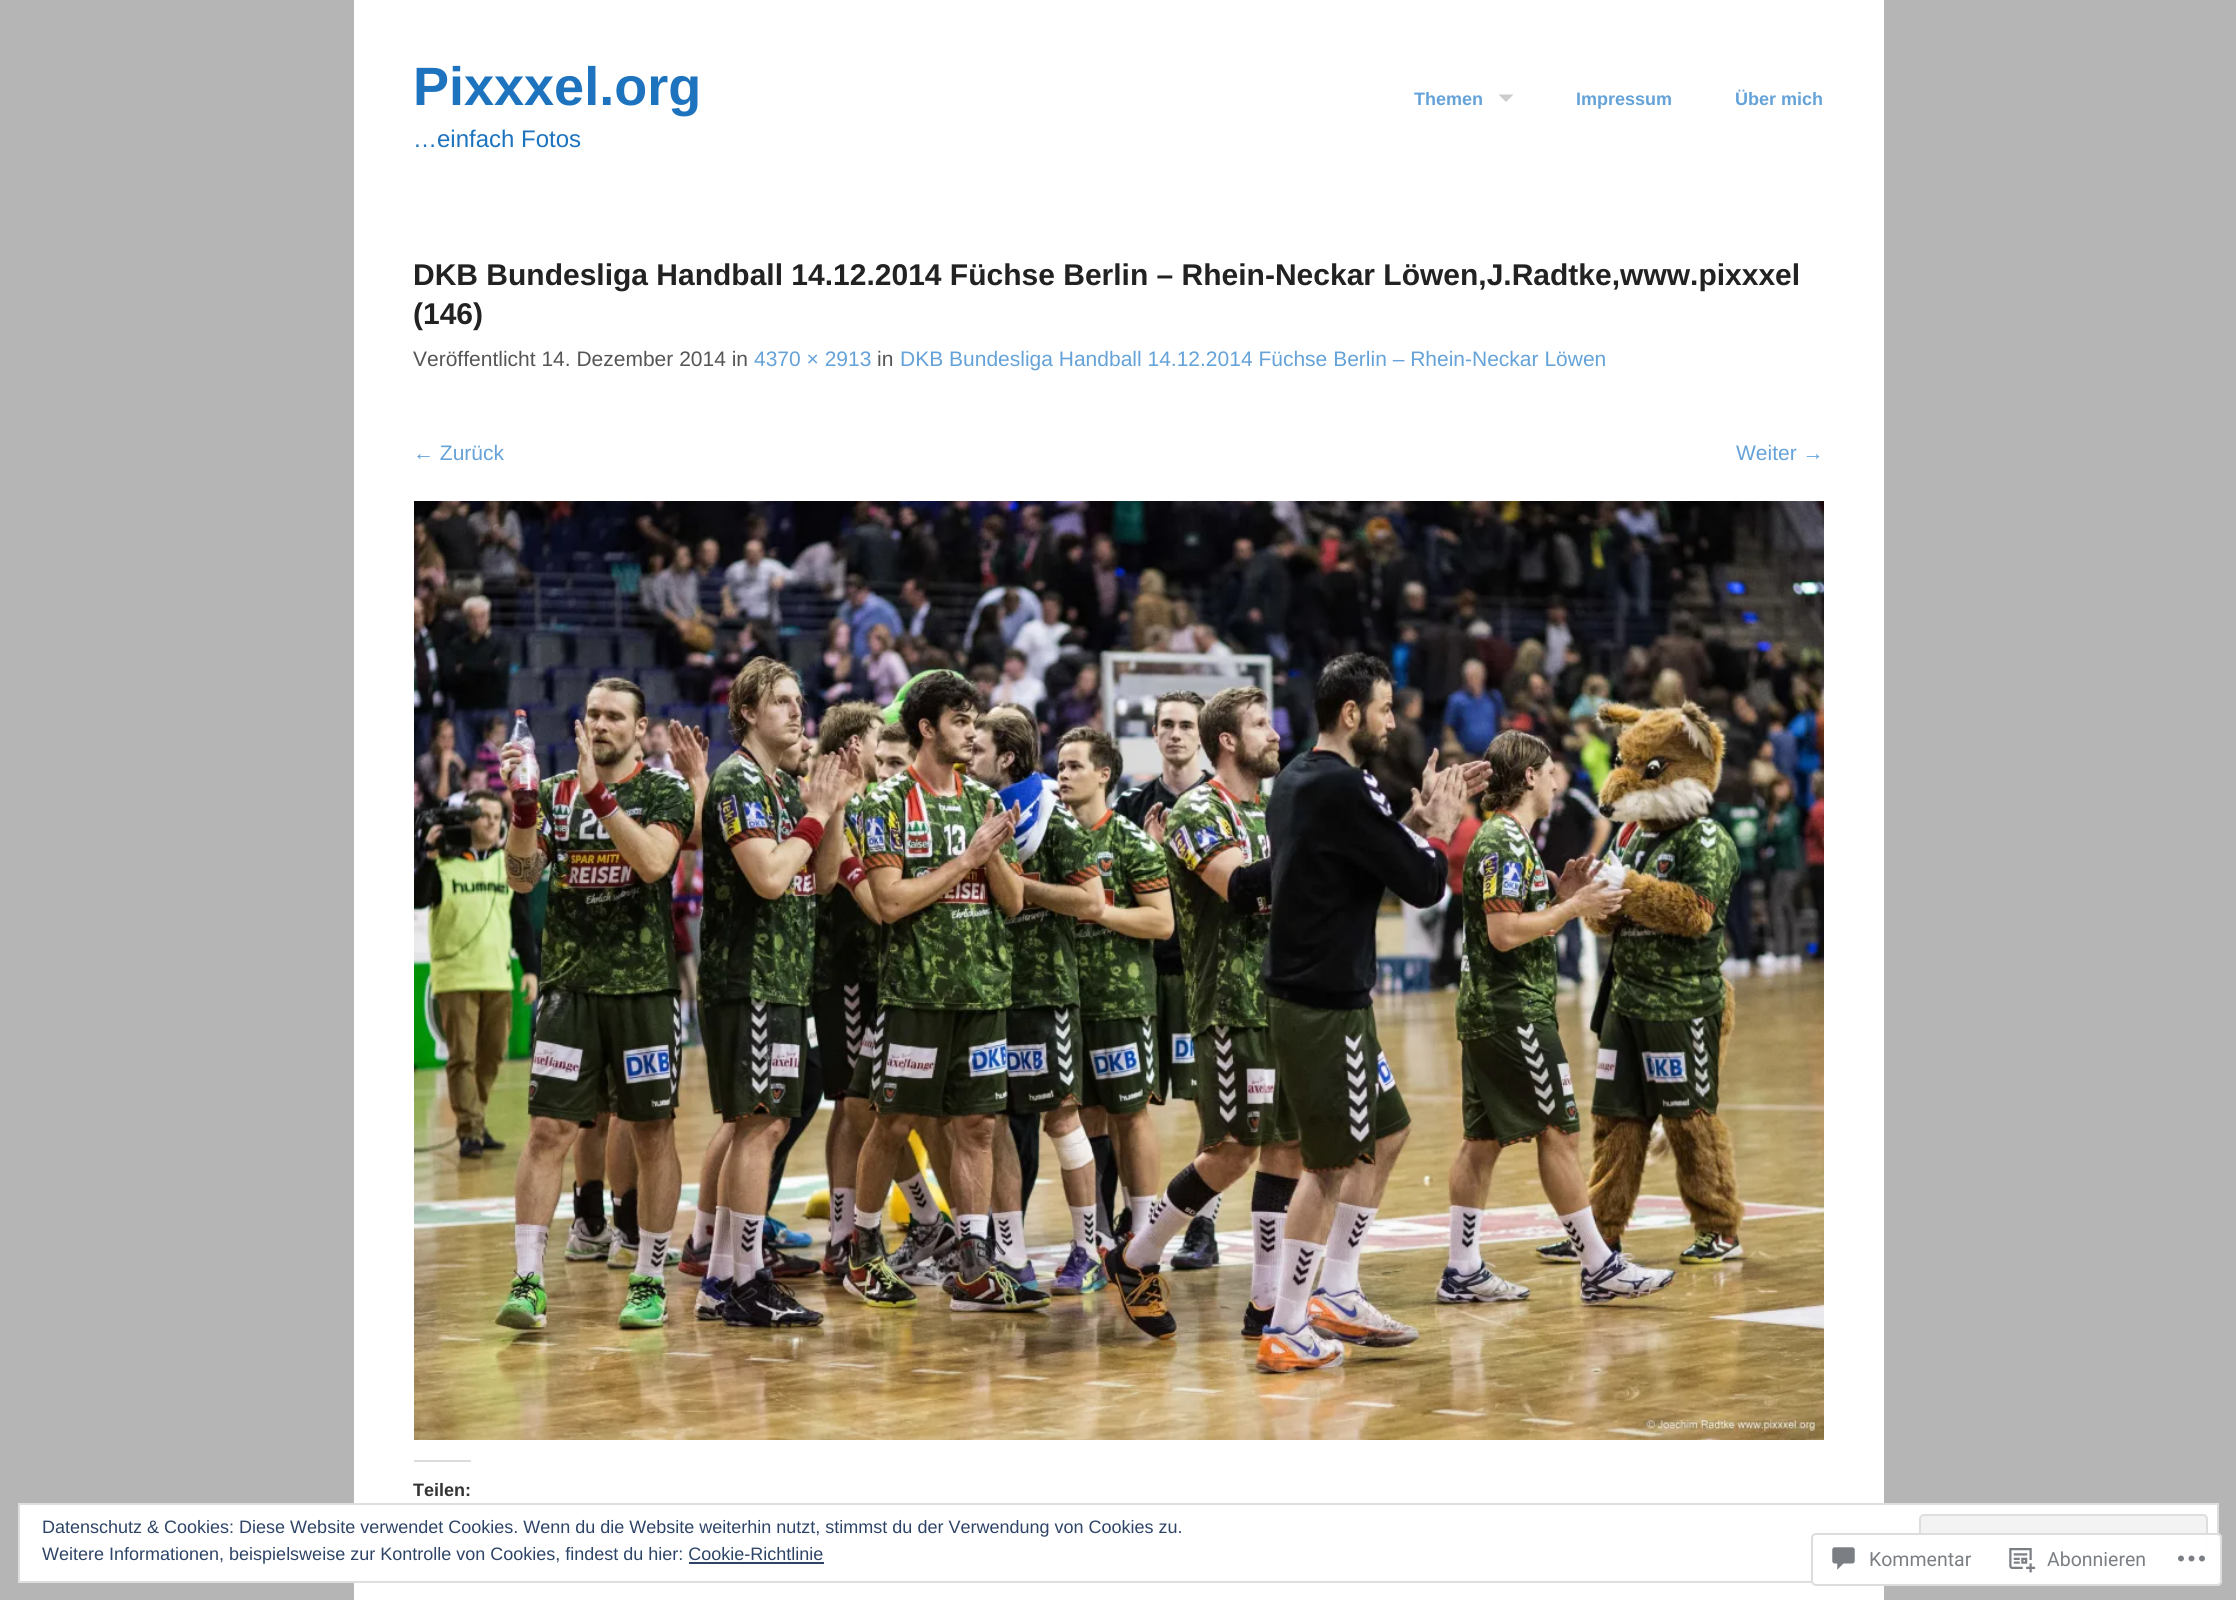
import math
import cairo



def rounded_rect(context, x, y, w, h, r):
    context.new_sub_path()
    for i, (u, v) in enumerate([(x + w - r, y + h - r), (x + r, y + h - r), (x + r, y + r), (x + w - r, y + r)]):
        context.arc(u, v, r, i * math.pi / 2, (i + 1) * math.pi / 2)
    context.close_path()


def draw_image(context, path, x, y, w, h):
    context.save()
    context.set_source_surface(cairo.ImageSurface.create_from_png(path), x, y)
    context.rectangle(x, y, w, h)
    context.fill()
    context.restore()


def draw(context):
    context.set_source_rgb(181 / 255, 181 / 255, 181 / 255)
    context.paint()
    context.set_source_rgb(1, 1, 1)
    context.rectangle(354, 0, 1530, 1600)
    context.fill()
    context.set_source_rgb(204 / 255, 204 / 255, 204 / 255)
    context.new_path()
    context.move_to(1498.5, 94.5)
    context.line_to(1513.5, 94.5)
    context.line_to(1506, 102)
    context.close_path()
    context.fill()
    draw_image(context, "images/1.png", 414, 501, 1410, 939)
    context.set_source_rgb(220 / 255, 220 / 255, 222 / 255)
    context.rectangle(414, 1460, 57, 2)
    context.fill()
    context.set_source_rgb(1, 1, 1)
    context.rectangle(19, 1504, 2199, 78)
    context.fill_preserve()
    context.set_source_rgb(222 / 255, 222 / 255, 222 / 255)
    context.stroke()
    context.set_source_rgb(243 / 255, 243 / 255, 243 / 255)
    rounded_rect(context, 1920, 1515, 287, 56, 4)
    context.fill_preserve()
    context.set_source_rgb(222 / 255, 222 / 255, 222 / 255)
    context.stroke()
    context.set_source_rgb(46 / 255, 68 / 255, 103 / 255)
    context.rectangle(689, 1562, 135, 2)
    context.fill()
    context.set_source_rgba(1, 1, 1, 0.98)
    rounded_rect(context, 1811, 1533, 411, 53, 5)
    context.fill()
    rounded_rect(context, 1812, 1534, 409, 51, 4)
    context.set_source_rgba(220 / 255, 220 / 255, 222 / 255, 0.98)
    context.stroke()
    draw_image(context, "images/2.png", 1832, 1547, 23, 23)
    draw_image(context, "images/3.png", 2009, 1548, 27, 25)
    draw_image(context, "images/4.png", 2178, 1555, 27, 7)
    context.select_font_face("Liberation Sans", cairo.FontSlant.NORMAL, cairo.FontWeight.BOLD)
    context.set_font_size(54)
    context.set_source_rgb(30 / 255, 115 / 255, 190 / 255)
    context.move_to(413, 105)
    context.show_text("Pixxxel.org")
    context.select_font_face("Liberation Sans")
    context.set_font_size(24)
    context.move_to(413, 147)
    context.show_text("…einfach Fotos")
    context.select_font_face("Liberation Sans", cairo.FontSlant.NORMAL, cairo.FontWeight.BOLD)
    context.set_font_size(18)
    context.set_source_rgb(100 / 255, 162 / 255, 216 / 255)
    context.move_to(1414, 105)
    context.show_text("Themen")
    context.move_to(1576, 105)
    context.show_text("Impressum")
    context.move_to(1735, 105)
    context.show_text("Über mich")
    context.set_font_size(30)
    context.set_source_rgb(34 / 255, 34 / 255, 34 / 255)
    context.move_to(413, 285)
    context.show_text("DKB Bundesliga Handball 14.12.2014 Füchse Berlin – Rhein-Neckar Löwen,J.Radtke,www.pixxxel")
    context.move_to(413, 324)
    context.show_text("(146)")
    context.select_font_face("Liberation Sans")
    context.set_font_size(21)
    context.set_source_rgb(85 / 255, 85 / 255, 85 / 255)
    context.move_to(413, 366)
    context.show_text("Veröffentlicht 14. Dezember 2014 in")
    context.set_source_rgb(100 / 255, 162 / 255, 216 / 255)
    context.move_to(754, 366)
    context.show_text("4370 × 2913")
    context.set_source_rgb(85 / 255, 85 / 255, 85 / 255)
    context.move_to(877, 366)
    context.show_text("in")
    context.set_source_rgb(100 / 255, 162 / 255, 216 / 255)
    context.move_to(900, 366)
    context.show_text("DKB Bundesliga Handball 14.12.2014 Füchse Berlin – Rhein-Neckar Löwen")
    context.move_to(413, 460)
    context.show_text("← Zurück")
    context.move_to(1736, 460)
    context.show_text("Weiter →")
    context.select_font_face("Liberation Sans", cairo.FontSlant.NORMAL, cairo.FontWeight.BOLD)
    context.set_font_size(18)
    context.set_source_rgb(51 / 255, 51 / 255, 51 / 255)
    context.move_to(413, 1496)
    context.show_text("Teilen:")
    context.select_font_face("Liberation Sans")
    context.set_source_rgb(46 / 255, 68 / 255, 103 / 255)
    context.move_to(42, 1533)
    context.show_text("Datenschutz & Cookies: Diese Website verwendet Cookies. Wenn du die Website weiterhin nutzt, stimmst du der Verwendung von Cookies zu.")
    context.move_to(42, 1560)
    context.show_text("Weitere Informationen, beispielsweise zur Kontrolle von Cookies, findest du hier: Cookie-Richtlinie")
    context.select_font_face("Roboto")
    context.set_font_size(19.5)
    context.set_source_rgb(123 / 255, 127 / 255, 132 / 255)
    context.move_to(1869, 1566)
    context.show_text("Kommentar")
    context.move_to(2047, 1566)
    context.show_text("Abonnieren")


surface = cairo.ImageSurface(cairo.Format.RGB24, 2236, 1600)
context = cairo.Context(surface)
options = cairo.FontOptions()
options.set_hint_metrics(cairo.HintMetrics.OFF)
options.set_hint_style(cairo.HintStyle.NONE)
context.set_font_options(options)
context.set_miter_limit(4)
draw(context)
surface.write_to_png("out.png")
